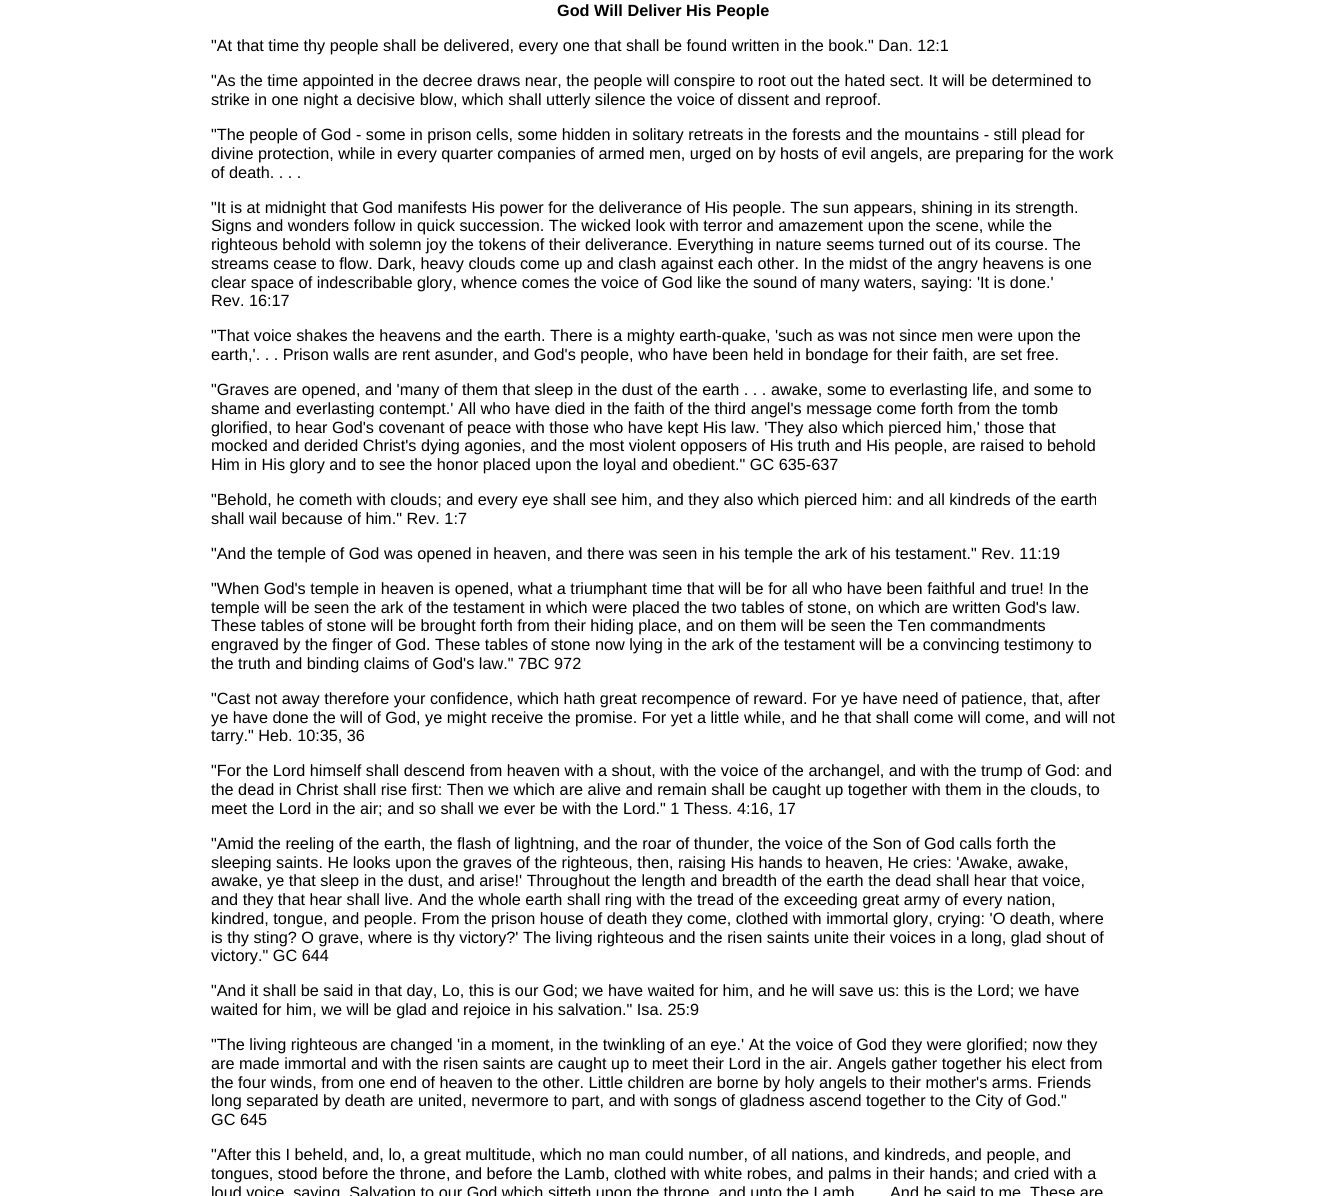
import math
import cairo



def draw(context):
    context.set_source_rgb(1, 1, 1)
    context.paint()
    context.select_font_face("Liberation Sans", cairo.FontSlant.NORMAL, cairo.FontWeight.BOLD)
    context.set_font_size(16.25)
    context.set_source_rgb(0, 0, 0)
    context.move_to(557, 16)
    context.show_text("God Will Deliver His People")
    context.select_font_face("Liberation Sans")
    context.move_to(211, 51)
    context.show_text("\"At that time thy people shall be delivered, every one that shall be found written in the book.\" Dan. 12:1")
    context.move_to(211, 86)
    context.show_text("\"As the time appointed in the decree draws near, the people will conspire to root out the hated sect. It will be determined to")
    context.move_to(211, 105)
    context.show_text("strike in one night a decisive blow, which shall utterly silence the voice of dissent and reproof.")
    context.move_to(211, 140)
    context.show_text("\"The people of God - some in prison cells, some hidden in solitary retreats in the forests and the mountains - still plead for")
    context.move_to(211, 159)
    context.show_text("divine protection, while in every quarter companies of armed men, urged on by hosts of evil angels, are preparing for the work")
    context.move_to(211, 178)
    context.show_text("of death. . . .")
    context.move_to(211, 213)
    context.show_text("\"It is at midnight that God manifests His power for the deliverance of His people. The sun appears, shining in its strength.")
    context.move_to(211, 231)
    context.show_text("Signs and wonders follow in quick succession. The wicked look with terror and amazement upon the scene, while the")
    context.move_to(211, 250)
    context.show_text("righteous behold with solemn joy the tokens of their deliverance. Everything in nature seems turned out of its course. The")
    context.move_to(211, 269)
    context.show_text("streams cease to flow. Dark, heavy clouds come up and clash against each other. In the midst of the angry heavens is one")
    context.move_to(211, 288)
    context.show_text("clear space of indescribable glory, whence comes the voice of God like the sound of many waters, saying: 'It is done.'")
    context.move_to(211, 306)
    context.show_text("Rev. 16:17")
    context.move_to(211, 341)
    context.show_text("\"That voice shakes the heavens and the earth. There is a mighty earth-quake, 'such as was not since men were upon the")
    context.move_to(211, 360)
    context.show_text("earth,'. . . Prison walls are rent asunder, and God's people, who have been held in bondage for their faith, are set free.")
    context.move_to(211, 395)
    context.show_text("\"Graves are opened, and 'many of them that sleep in the dust of the earth . . . awake, some to everlasting life, and some to")
    context.move_to(211, 414)
    context.show_text("shame and everlasting contempt.' All who have died in the faith of the third angel's message come forth from the tomb")
    context.move_to(211, 433)
    context.show_text("glorified, to hear God's covenant of peace with those who have kept His law. 'They also which pierced him,' those that")
    context.move_to(211, 451)
    context.show_text("mocked and derided Christ's dying agonies, and the most violent opposers of His truth and His people, are raised to behold")
    context.move_to(211, 470)
    context.show_text("Him in His glory and to see the honor placed upon the loyal and obedient.\" GC 635-637")
    context.move_to(211, 505)
    context.show_text("\"Behold, he cometh with clouds; and every eye shall see him, and they also which pierced him: and all kindreds of the earth")
    context.move_to(211, 524)
    context.show_text("shall wail because of him.\" Rev. 1:7")
    context.move_to(211, 559)
    context.show_text("\"And the temple of God was opened in heaven, and there was seen in his temple the ark of his testament.\" Rev. 11:19")
    context.move_to(211, 594)
    context.show_text("\"When God's temple in heaven is opened, what a triumphant time that will be for all who have been faithful and true! In the")
    context.move_to(211, 613)
    context.show_text("temple will be seen the ark of the testament in which were placed the two tables of stone, on which are written God's law.")
    context.move_to(211, 631)
    context.show_text("These tables of stone will be brought forth from their hiding place, and on them will be seen the Ten commandments")
    context.move_to(211, 650)
    context.show_text("engraved by the finger of God. These tables of stone now lying in the ark of the testament will be a convincing testimony to")
    context.move_to(211, 669)
    context.show_text("the truth and binding claims of God's law.\" 7BC 972")
    context.move_to(211, 704)
    context.show_text("\"Cast not away therefore your confidence, which hath great recompence of reward. For ye have need of patience, that, after")
    context.move_to(211, 723)
    context.show_text("ye have done the will of God, ye might receive the promise. For yet a little while, and he that shall come will come, and will not")
    context.move_to(211, 741)
    context.show_text("tarry.\" Heb. 10:35, 36")
    context.move_to(211, 776)
    context.show_text("\"For the Lord himself shall descend from heaven with a shout, with the voice of the archangel, and with the trump of God: and")
    context.move_to(211, 795)
    context.show_text("the dead in Christ shall rise first: Then we which are alive and remain shall be caught up together with them in the clouds, to")
    context.move_to(211, 814)
    context.show_text("meet the Lord in the air; and so shall we ever be with the Lord.\" 1 Thess. 4:16, 17")
    context.move_to(211, 849)
    context.show_text("\"Amid the reeling of the earth, the flash of lightning, and the roar of thunder, the voice of the Son of God calls forth the")
    context.move_to(211, 868)
    context.show_text("sleeping saints. He looks upon the graves of the righteous, then, raising His hands to heaven, He cries: 'Awake, awake,")
    context.move_to(211, 886)
    context.show_text("awake, ye that sleep in the dust, and arise!' Throughout the length and breadth of the earth the dead shall hear that voice,")
    context.move_to(211, 905)
    context.show_text("and they that hear shall live. And the whole earth shall ring with the tread of the exceeding great army of every nation,")
    context.move_to(211, 924)
    context.show_text("kindred, tongue, and people. From the prison house of death they come, clothed with immortal glory, crying: 'O death, where")
    context.move_to(211, 943)
    context.show_text("is thy sting? O grave, where is thy victory?' The living righteous and the risen saints unite their voices in a long, glad shout of")
    context.move_to(211, 961)
    context.show_text("victory.\" GC 644")
    context.move_to(211, 996)
    context.show_text("\"And it shall be said in that day, Lo, this is our God; we have waited for him, and he will save us: this is the Lord; we have")
    context.move_to(211, 1015)
    context.show_text("waited for him, we will be glad and rejoice in his salvation.\" Isa. 25:9")
    context.move_to(211, 1050)
    context.show_text("\"The living righteous are changed 'in a moment, in the twinkling of an eye.' At the voice of God they were glorified; now they")
    context.move_to(211, 1069)
    context.show_text("are made immortal and with the risen saints are caught up to meet their Lord in the air. Angels gather together his elect from")
    context.move_to(211, 1088)
    context.show_text("the four winds, from one end of heaven to the other. Little children are borne by holy angels to their mother's arms. Friends")
    context.move_to(211, 1106)
    context.show_text("long separated by death are united, nevermore to part, and with songs of gladness ascend together to the City of God.\"")
    context.move_to(211, 1125)
    context.show_text("GC 645")
    context.move_to(211, 1160)
    context.show_text("\"After this I beheld, and, lo, a great multitude, which no man could number, of all nations, and kindreds, and people, and")
    context.move_to(211, 1179)
    context.show_text("tongues, stood before the throne, and before the Lamb, clothed with white robes, and palms in their hands; and cried with a")
    context.move_to(211, 1198)
    context.show_text("loud voice, saying, Salvation to our God which sitteth upon the throne, and unto the Lamb")
    context.move_to(890, 1198)
    context.show_text("And he said to me, These are")


surface = cairo.ImageSurface(cairo.Format.RGB24, 1326, 1196)
context = cairo.Context(surface)
options = cairo.FontOptions()
options.set_hint_metrics(cairo.HintMetrics.OFF)
options.set_hint_style(cairo.HintStyle.NONE)
context.set_font_options(options)
context.set_miter_limit(4)
draw(context)
surface.write_to_png("out.png")
